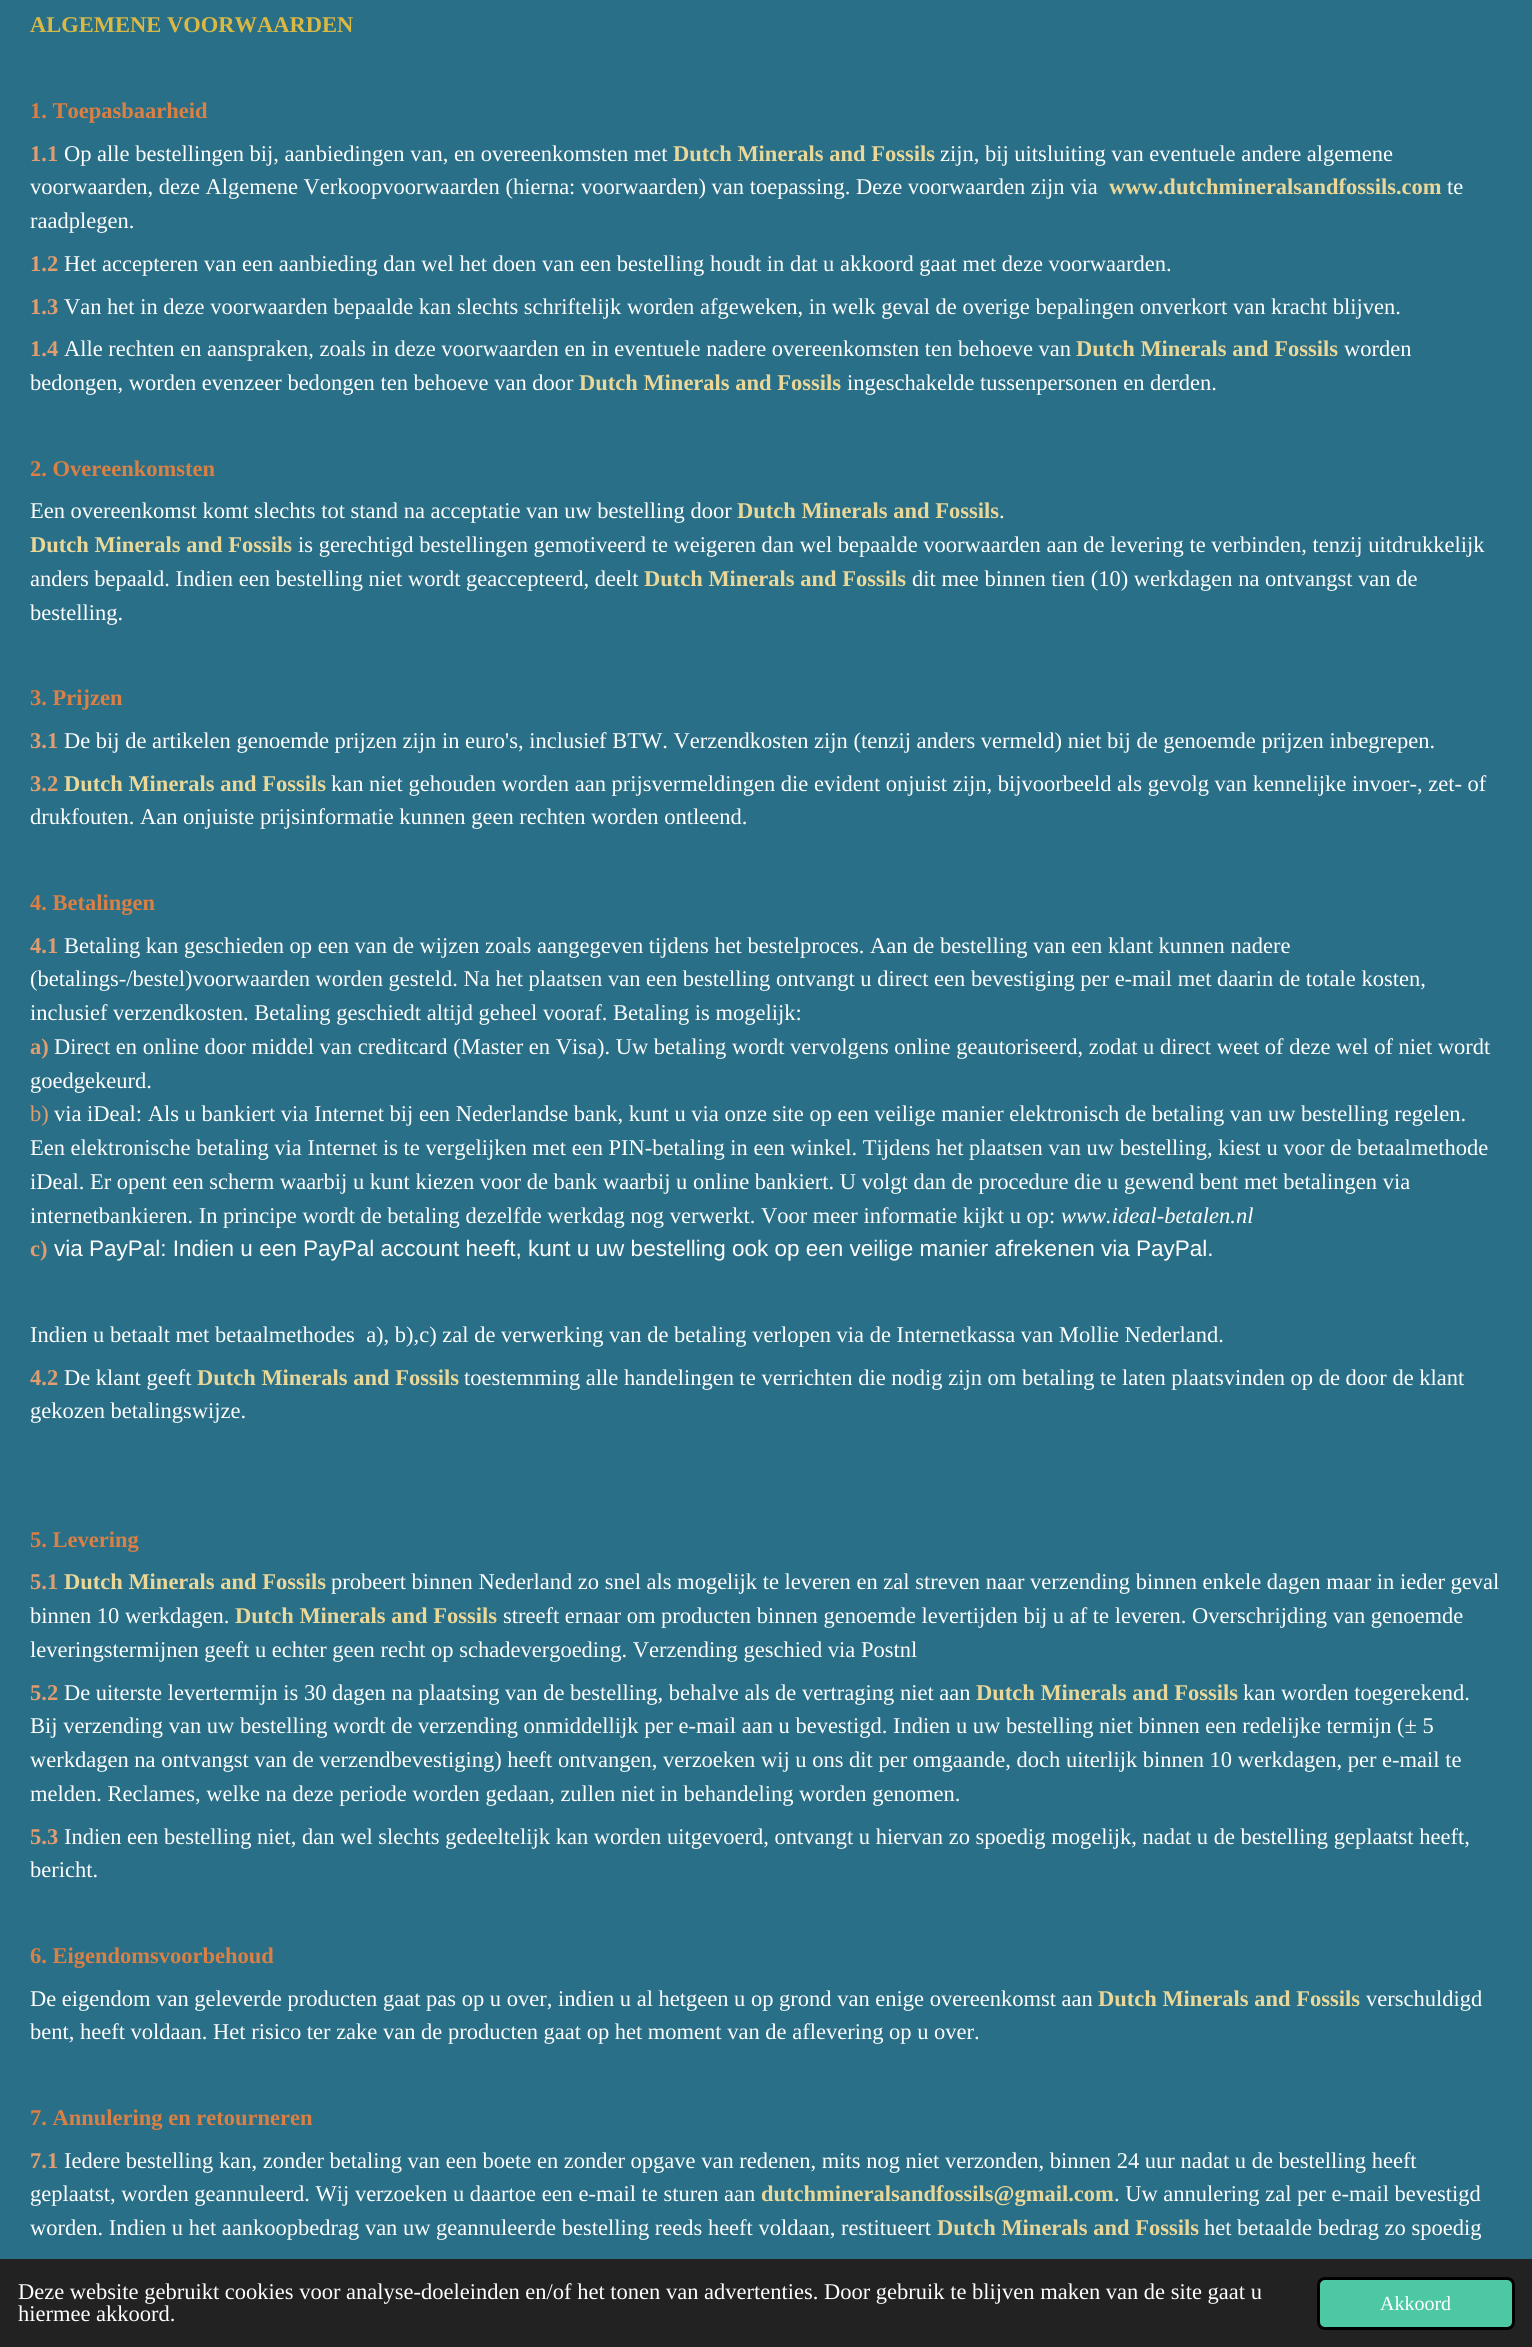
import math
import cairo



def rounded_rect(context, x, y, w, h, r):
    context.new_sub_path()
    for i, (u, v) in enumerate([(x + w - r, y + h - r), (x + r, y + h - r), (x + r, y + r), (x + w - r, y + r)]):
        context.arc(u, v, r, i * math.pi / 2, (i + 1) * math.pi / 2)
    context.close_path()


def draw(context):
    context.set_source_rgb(41 / 255, 111 / 255, 135 / 255)
    context.paint()
    context.set_source_rgb(34 / 255, 34 / 255, 34 / 255)
    context.rectangle(0, 2259, 1532, 88)
    context.fill()
    context.set_source_rgb(76 / 255, 201 / 255, 164 / 255)
    rounded_rect(context, 1318.5, 2278.5, 195, 50, 6.5)
    context.fill_preserve()
    context.set_source_rgb(0, 0, 0)
    context.set_line_width(3)
    context.stroke()
    context.select_font_face("Liberation Serif", cairo.FontSlant.NORMAL, cairo.FontWeight.BOLD)
    context.set_font_size(22.5)
    context.set_source_rgb(218 / 255, 184 / 255, 68 / 255)
    context.move_to(30, 32)
    context.show_text("ALGEMENE VOORWAARDEN")
    context.set_source_rgb(218 / 255, 128 / 255, 68 / 255)
    context.move_to(30, 118)
    context.show_text("1. Toepasbaarheid")
    context.set_source_rgb(226 / 255, 157 / 255, 111 / 255)
    context.move_to(30, 161)
    context.show_text("1.1")
    context.select_font_face("Liberation Serif")
    context.set_source_rgb(1, 1, 1)
    context.move_to(64, 161)
    context.show_text("Op alle bestellingen bij, aanbiedingen van, en overeenkomsten met")
    context.select_font_face("Liberation Serif", cairo.FontSlant.NORMAL, cairo.FontWeight.BOLD)
    context.set_source_rgb(235 / 255, 216 / 255, 153 / 255)
    context.move_to(673, 161)
    context.show_text("Dutch Minerals and Fossils")
    context.select_font_face("Liberation Serif")
    context.set_source_rgb(1, 1, 1)
    context.move_to(940, 161)
    context.show_text("zijn, bij uitsluiting van eventuele andere algemene")
    context.move_to(30, 194)
    context.show_text("voorwaarden, deze Algemene Verkoopvoorwaarden (hierna: voorwaarden) van toepassing. Deze voorwaarden zijn via")
    context.select_font_face("Liberation Serif", cairo.FontSlant.NORMAL, cairo.FontWeight.BOLD)
    context.set_source_rgb(235 / 255, 216 / 255, 153 / 255)
    context.move_to(1109, 194)
    context.show_text("www.dutchmineralsandfossils.com")
    context.select_font_face("Liberation Serif")
    context.set_source_rgb(1, 1, 1)
    context.move_to(1447, 194)
    context.show_text("te")
    context.move_to(30, 228)
    context.show_text("raadplegen.")
    context.select_font_face("Liberation Serif", cairo.FontSlant.NORMAL, cairo.FontWeight.BOLD)
    context.set_source_rgb(226 / 255, 157 / 255, 111 / 255)
    context.move_to(30, 271)
    context.show_text("1.2")
    context.select_font_face("Liberation Serif")
    context.set_source_rgb(1, 1, 1)
    context.move_to(64, 271)
    context.show_text("Het accepteren van een aanbieding dan wel het doen van een bestelling houdt in dat u akkoord gaat met deze voorwaarden.")
    context.select_font_face("Liberation Serif", cairo.FontSlant.NORMAL, cairo.FontWeight.BOLD)
    context.set_source_rgb(226 / 255, 157 / 255, 111 / 255)
    context.move_to(30, 314)
    context.show_text("1.3")
    context.select_font_face("Liberation Serif")
    context.set_source_rgb(1, 1, 1)
    context.move_to(64, 314)
    context.show_text("Van het in deze voorwaarden bepaalde kan slechts schriftelijk worden afgeweken, in welk geval de overige bepalingen onverkort van kracht blijven.")
    context.select_font_face("Liberation Serif", cairo.FontSlant.NORMAL, cairo.FontWeight.BOLD)
    context.set_source_rgb(226 / 255, 157 / 255, 111 / 255)
    context.move_to(30, 356)
    context.show_text("1.4")
    context.select_font_face("Liberation Serif")
    context.set_source_rgb(1, 1, 1)
    context.move_to(64, 356)
    context.show_text("Alle rechten en aanspraken, zoals in deze voorwaarden en in eventuele nadere overeenkomsten ten behoeve van")
    context.select_font_face("Liberation Serif", cairo.FontSlant.NORMAL, cairo.FontWeight.BOLD)
    context.set_source_rgb(235 / 255, 216 / 255, 153 / 255)
    context.move_to(1076, 356)
    context.show_text("Dutch Minerals and Fossils")
    context.select_font_face("Liberation Serif")
    context.set_source_rgb(1, 1, 1)
    context.move_to(1344, 356)
    context.show_text("worden")
    context.move_to(30, 390)
    context.show_text("bedongen, worden evenzeer bedongen ten behoeve van door")
    context.select_font_face("Liberation Serif", cairo.FontSlant.NORMAL, cairo.FontWeight.BOLD)
    context.set_source_rgb(235 / 255, 216 / 255, 153 / 255)
    context.move_to(579, 390)
    context.show_text("Dutch Minerals and Fossils")
    context.select_font_face("Liberation Serif")
    context.set_source_rgb(1, 1, 1)
    context.move_to(847, 390)
    context.show_text("ingeschakelde tussenpersonen en derden.")
    context.select_font_face("Liberation Serif", cairo.FontSlant.NORMAL, cairo.FontWeight.BOLD)
    context.set_source_rgb(218 / 255, 128 / 255, 68 / 255)
    context.move_to(30, 476)
    context.show_text("2. Overeenkomsten")
    context.select_font_face("Liberation Serif")
    context.set_source_rgb(1, 1, 1)
    context.move_to(30, 518)
    context.show_text("Een overeenkomst komt slechts tot stand na acceptatie van uw bestelling door")
    context.select_font_face("Liberation Serif", cairo.FontSlant.NORMAL, cairo.FontWeight.BOLD)
    context.set_source_rgb(235 / 255, 216 / 255, 153 / 255)
    context.move_to(737, 518)
    context.show_text("Dutch Minerals and Fossils")
    context.select_font_face("Liberation Serif")
    context.set_source_rgb(1, 1, 1)
    context.move_to(999, 518)
    context.show_text(".")
    context.select_font_face("Liberation Serif", cairo.FontSlant.NORMAL, cairo.FontWeight.BOLD)
    context.set_source_rgb(235 / 255, 216 / 255, 153 / 255)
    context.move_to(30, 552)
    context.show_text("Dutch Minerals and Fossils")
    context.select_font_face("Liberation Serif")
    context.set_source_rgb(1, 1, 1)
    context.move_to(298, 552)
    context.show_text("is gerechtigd bestellingen gemotiveerd te weigeren dan wel bepaalde voorwaarden aan de levering te verbinden, tenzij uitdrukkelijk")
    context.move_to(30, 586)
    context.show_text("anders bepaald. Indien een bestelling niet wordt geaccepteerd, deelt")
    context.select_font_face("Liberation Serif", cairo.FontSlant.NORMAL, cairo.FontWeight.BOLD)
    context.set_source_rgb(235 / 255, 216 / 255, 153 / 255)
    context.move_to(644, 586)
    context.show_text("Dutch Minerals and Fossils")
    context.select_font_face("Liberation Serif")
    context.set_source_rgb(1, 1, 1)
    context.move_to(912, 586)
    context.show_text("dit mee binnen tien (10) werkdagen na ontvangst van de")
    context.move_to(30, 620)
    context.show_text("bestelling.")
    context.select_font_face("Liberation Serif", cairo.FontSlant.NORMAL, cairo.FontWeight.BOLD)
    context.set_source_rgb(218 / 255, 128 / 255, 68 / 255)
    context.move_to(30, 705)
    context.show_text("3. Prijzen")
    context.set_source_rgb(226 / 255, 157 / 255, 111 / 255)
    context.move_to(30, 748)
    context.show_text("3.1")
    context.select_font_face("Liberation Serif")
    context.set_source_rgb(1, 1, 1)
    context.move_to(64, 748)
    context.show_text("De bij de artikelen genoemde prijzen zijn in euro's, inclusief BTW. Verzendkosten zijn (tenzij anders vermeld) niet bij de genoemde prijzen inbegrepen.")
    context.select_font_face("Liberation Serif", cairo.FontSlant.NORMAL, cairo.FontWeight.BOLD)
    context.set_source_rgb(226 / 255, 157 / 255, 111 / 255)
    context.move_to(30, 791)
    context.show_text("3.2")
    context.set_source_rgb(235 / 255, 216 / 255, 153 / 255)
    context.move_to(64, 791)
    context.show_text("Dutch Minerals and Fossils")
    context.select_font_face("Liberation Serif")
    context.set_source_rgb(1, 1, 1)
    context.move_to(331, 791)
    context.show_text("kan niet gehouden worden aan prijsvermeldingen die evident onjuist zijn, bijvoorbeeld als gevolg van kennelijke invoer-, zet- of")
    context.move_to(30, 824)
    context.show_text("drukfouten. Aan onjuiste prijsinformatie kunnen geen rechten worden ontleend.")
    context.select_font_face("Liberation Serif", cairo.FontSlant.NORMAL, cairo.FontWeight.BOLD)
    context.set_source_rgb(218 / 255, 128 / 255, 68 / 255)
    context.move_to(30, 910)
    context.show_text("4. Betalingen")
    context.set_source_rgb(226 / 255, 157 / 255, 111 / 255)
    context.move_to(30, 953)
    context.show_text("4.1")
    context.select_font_face("Liberation Serif")
    context.set_source_rgb(1, 1, 1)
    context.move_to(64, 953)
    context.show_text("Betaling kan geschieden op een van de wijzen zoals aangegeven tijdens het bestelproces. Aan de bestelling van een klant kunnen nadere")
    context.move_to(30, 986)
    context.show_text("(betalings-/bestel)voorwaarden worden gesteld. Na het plaatsen van een bestelling ontvangt u direct een bevestiging per e-mail met daarin de totale kosten,")
    context.move_to(30, 1020)
    context.show_text("inclusief verzendkosten. Betaling geschiedt altijd geheel vooraf. Betaling is mogelijk:")
    context.select_font_face("Liberation Serif", cairo.FontSlant.NORMAL, cairo.FontWeight.BOLD)
    context.set_source_rgb(226 / 255, 157 / 255, 111 / 255)
    context.move_to(30, 1054)
    context.show_text("a)")
    context.select_font_face("Liberation Serif")
    context.set_source_rgb(1, 1, 1)
    context.move_to(54, 1054)
    context.show_text("Direct en online door middel van creditcard (Master en Visa). Uw betaling wordt vervolgens online geautoriseerd, zodat u direct weet of deze wel of niet wordt")
    context.move_to(30, 1088)
    context.show_text("goedgekeurd.")
    context.set_source_rgb(226 / 255, 157 / 255, 111 / 255)
    context.move_to(30, 1121)
    context.show_text("b)")
    context.set_source_rgb(1, 1, 1)
    context.move_to(54, 1121)
    context.show_text("via iDeal: Als u bankiert via Internet bij een Nederlandse bank, kunt u via onze site op een veilige manier elektronisch de betaling van uw bestelling regelen.")
    context.move_to(30, 1155)
    context.show_text("Een elektronische betaling via Internet is te vergelijken met een PIN-betaling in een winkel. Tijdens het plaatsen van uw bestelling, kiest u voor de betaalmethode")
    context.move_to(30, 1189)
    context.show_text("iDeal. Er opent een scherm waarbij u kunt kiezen voor de bank waarbij u online bankiert. U volgt dan de procedure die u gewend bent met betalingen via")
    context.move_to(30, 1223)
    context.show_text("internetbankieren. In principe wordt de betaling dezelfde werkdag nog verwerkt. Voor meer informatie kijkt u op:")
    context.select_font_face("Liberation Serif", cairo.FontSlant.ITALIC)
    context.move_to(1061, 1223)
    context.show_text("www.ideal-betalen.nl")
    context.select_font_face("Liberation Serif", cairo.FontSlant.NORMAL, cairo.FontWeight.BOLD)
    context.set_source_rgb(226 / 255, 157 / 255, 111 / 255)
    context.move_to(30, 1256)
    context.show_text("c)")
    context.select_font_face("Liberation Sans")
    context.set_source_rgb(1, 1, 1)
    context.move_to(54, 1256)
    context.show_text("via PayPal: Indien u een PayPal account heeft, kunt u uw bestelling ook op een veilige manier afrekenen via PayPal.")
    context.select_font_face("Liberation Serif")
    context.move_to(30, 1342)
    context.show_text("Indien u betaalt met betaalmethodes  a), b),c) zal de verwerking van de betaling verlopen via de Internetkassa van Mollie Nederland.")
    context.select_font_face("Liberation Serif", cairo.FontSlant.NORMAL, cairo.FontWeight.BOLD)
    context.set_source_rgb(226 / 255, 157 / 255, 111 / 255)
    context.move_to(30, 1385)
    context.show_text("4.2")
    context.select_font_face("Liberation Serif")
    context.set_source_rgb(1, 1, 1)
    context.move_to(64, 1385)
    context.show_text("De klant geeft")
    context.select_font_face("Liberation Serif", cairo.FontSlant.NORMAL, cairo.FontWeight.BOLD)
    context.set_source_rgb(235 / 255, 216 / 255, 153 / 255)
    context.move_to(197, 1385)
    context.show_text("Dutch Minerals and Fossils")
    context.select_font_face("Liberation Serif")
    context.set_source_rgb(1, 1, 1)
    context.move_to(464, 1385)
    context.show_text("toestemming alle handelingen te verrichten die nodig zijn om betaling te laten plaatsvinden op de door de klant")
    context.move_to(30, 1418)
    context.show_text("gekozen betalingswijze.")
    context.select_font_face("Liberation Serif", cairo.FontSlant.NORMAL, cairo.FontWeight.BOLD)
    context.set_source_rgb(218 / 255, 128 / 255, 68 / 255)
    context.move_to(30, 1547)
    context.show_text("5. Levering")
    context.set_source_rgb(226 / 255, 157 / 255, 111 / 255)
    context.move_to(30, 1589)
    context.show_text("5.1")
    context.set_source_rgb(235 / 255, 216 / 255, 153 / 255)
    context.move_to(64, 1589)
    context.show_text("Dutch Minerals and Fossils")
    context.select_font_face("Liberation Serif")
    context.set_source_rgb(1, 1, 1)
    context.move_to(331, 1589)
    context.show_text("probeert binnen Nederland zo snel als mogelijk te leveren en zal streven naar verzending binnen enkele dagen maar in ieder geval")
    context.move_to(30, 1623)
    context.show_text("binnen 10 werkdagen.")
    context.select_font_face("Liberation Serif", cairo.FontSlant.NORMAL, cairo.FontWeight.BOLD)
    context.set_source_rgb(235 / 255, 216 / 255, 153 / 255)
    context.move_to(235, 1623)
    context.show_text("Dutch Minerals and Fossils")
    context.select_font_face("Liberation Serif")
    context.set_source_rgb(1, 1, 1)
    context.move_to(503, 1623)
    context.show_text("streeft ernaar om producten binnen genoemde levertijden bij u af te leveren. Overschrijding van genoemde")
    context.move_to(30, 1657)
    context.show_text("leveringstermijnen geeft u echter geen recht op schadevergoeding. Verzending geschied via Postnl")
    context.select_font_face("Liberation Serif", cairo.FontSlant.NORMAL, cairo.FontWeight.BOLD)
    context.set_source_rgb(226 / 255, 157 / 255, 111 / 255)
    context.move_to(30, 1700)
    context.show_text("5.2")
    context.select_font_face("Liberation Serif")
    context.set_source_rgb(1, 1, 1)
    context.move_to(64, 1700)
    context.show_text("De uiterste levertermijn is 30 dagen na plaatsing van de bestelling, behalve als de vertraging niet aan")
    context.select_font_face("Liberation Serif", cairo.FontSlant.NORMAL, cairo.FontWeight.BOLD)
    context.set_source_rgb(235 / 255, 216 / 255, 153 / 255)
    context.move_to(976, 1700)
    context.show_text("Dutch Minerals and Fossils")
    context.select_font_face("Liberation Serif")
    context.set_source_rgb(1, 1, 1)
    context.move_to(1243, 1700)
    context.show_text("kan worden toegerekend.")
    context.move_to(30, 1733)
    context.show_text("Bij verzending van uw bestelling wordt de verzending onmiddellijk per e-mail aan u bevestigd. Indien u uw bestelling niet binnen een redelijke termijn (± 5")
    context.move_to(30, 1767)
    context.show_text("werkdagen na ontvangst van de verzendbevestiging) heeft ontvangen, verzoeken wij u ons dit per omgaande, doch uiterlijk binnen 10 werkdagen, per e-mail te")
    context.move_to(30, 1801)
    context.show_text("melden. Reclames, welke na deze periode worden gedaan, zullen niet in behandeling worden genomen.")
    context.select_font_face("Liberation Serif", cairo.FontSlant.NORMAL, cairo.FontWeight.BOLD)
    context.set_source_rgb(226 / 255, 157 / 255, 111 / 255)
    context.move_to(30, 1844)
    context.show_text("5.3")
    context.select_font_face("Liberation Serif")
    context.set_source_rgb(1, 1, 1)
    context.move_to(64, 1844)
    context.show_text("Indien een bestelling niet, dan wel slechts gedeeltelijk kan worden uitgevoerd, ontvangt u hiervan zo spoedig mogelijk, nadat u de bestelling geplaatst heeft,")
    context.move_to(30, 1877)
    context.show_text("bericht.")
    context.select_font_face("Liberation Serif", cairo.FontSlant.NORMAL, cairo.FontWeight.BOLD)
    context.set_source_rgb(218 / 255, 128 / 255, 68 / 255)
    context.move_to(30, 1963)
    context.show_text("6. Eigendomsvoorbehoud")
    context.select_font_face("Liberation Serif")
    context.set_source_rgb(1, 1, 1)
    context.move_to(30, 2006)
    context.show_text("De eigendom van geleverde producten gaat pas op u over, indien u al hetgeen u op grond van enige overeenkomst aan")
    context.select_font_face("Liberation Serif", cairo.FontSlant.NORMAL, cairo.FontWeight.BOLD)
    context.set_source_rgb(235 / 255, 216 / 255, 153 / 255)
    context.move_to(1098, 2006)
    context.show_text("Dutch Minerals and Fossils")
    context.select_font_face("Liberation Serif")
    context.set_source_rgb(1, 1, 1)
    context.move_to(1366, 2006)
    context.show_text("verschuldigd")
    context.move_to(30, 2039)
    context.show_text("bent, heeft voldaan. Het risico ter zake van de producten gaat op het moment van de aflevering op u over.")
    context.select_font_face("Liberation Serif", cairo.FontSlant.NORMAL, cairo.FontWeight.BOLD)
    context.set_source_rgb(218 / 255, 128 / 255, 68 / 255)
    context.move_to(30, 2125)
    context.show_text("7. Annulering en retourneren")
    context.set_source_rgb(226 / 255, 157 / 255, 111 / 255)
    context.move_to(30, 2168)
    context.show_text("7.1")
    context.select_font_face("Liberation Serif")
    context.set_source_rgb(1, 1, 1)
    context.move_to(64, 2168)
    context.show_text("Iedere bestelling kan, zonder betaling van een boete en zonder opgave van redenen, mits nog niet verzonden, binnen 24 uur nadat u de bestelling heeft")
    context.move_to(30, 2201)
    context.show_text("geplaatst, worden geannuleerd. Wij verzoeken u daartoe een e-mail te sturen aan")
    context.select_font_face("Liberation Serif", cairo.FontSlant.NORMAL, cairo.FontWeight.BOLD)
    context.set_source_rgb(235 / 255, 216 / 255, 153 / 255)
    context.move_to(761, 2201)
    context.show_text("dutchmineralsandfossils@gmail.com")
    context.select_font_face("Liberation Serif")
    context.set_source_rgb(1, 1, 1)
    context.move_to(1114, 2201)
    context.show_text(". Uw annulering zal per e-mail bevestigd")
    context.move_to(30, 2235)
    context.show_text("worden. Indien u het aankoopbedrag van uw geannuleerde bestelling reeds heeft voldaan, restitueert")
    context.select_font_face("Liberation Serif", cairo.FontSlant.NORMAL, cairo.FontWeight.BOLD)
    context.set_source_rgb(235 / 255, 216 / 255, 153 / 255)
    context.move_to(937, 2235)
    context.show_text("Dutch Minerals and Fossils")
    context.select_font_face("Liberation Serif")
    context.set_source_rgb(1, 1, 1)
    context.move_to(1204, 2235)
    context.show_text("het betaalde bedrag zo spoedig")
    context.move_to(18, 2299)
    context.show_text("Deze website gebruikt cookies voor analyse-doeleinden en/of het tonen van advertenties. Door gebruik te blijven maken van de site gaat u")
    context.move_to(18, 2321)
    context.show_text("hiermee akkoord.")
    context.set_font_size(20)
    context.move_to(1380, 2310)
    context.show_text("Akkoord")


surface = cairo.ImageSurface(cairo.Format.RGB24, 1532, 2347)
context = cairo.Context(surface)
options = cairo.FontOptions()
options.set_hint_metrics(cairo.HintMetrics.OFF)
options.set_hint_style(cairo.HintStyle.NONE)
context.set_font_options(options)
context.set_miter_limit(4)
draw(context)
surface.write_to_png("out.png")
